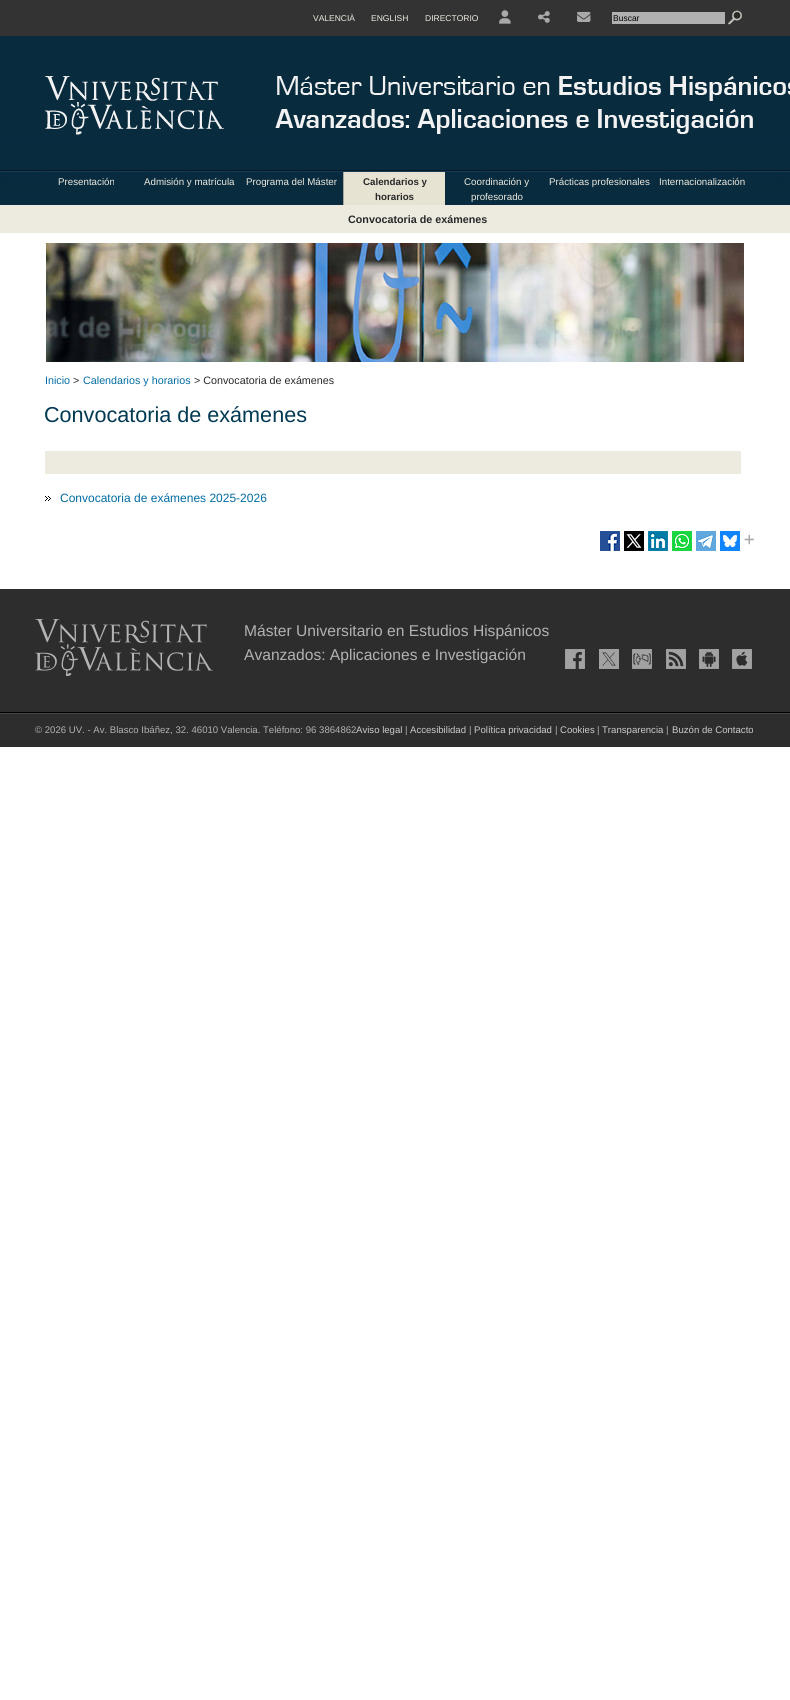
import math
import cairo



def draw_image(context, path, x, y, w, h):
    context.save()
    context.set_source_surface(cairo.ImageSurface.create_from_png(path), x, y)
    context.rectangle(x, y, w, h)
    context.fill()
    context.restore()


def draw(context):
    context.set_source_rgb(1, 1, 1)
    context.paint()
    draw_image(context, "images/1.png", 0, 0, 790, 233)
    draw_image(context, "images/2.png", 499, 10, 12, 14)
    draw_image(context, "images/3.png", 538, 11, 12, 12)
    draw_image(context, "images/4.png", 577, 11, 14, 11)
    context.set_source_rgb(177 / 255, 177 / 255, 177 / 255)
    context.rectangle(612, 12, 113, 12)
    context.fill()
    draw_image(context, "images/5.png", 728, 10, 15, 15)
    context.set_source_rgb(6 / 255, 26 / 255, 37 / 255)
    context.rectangle(35, 170, 720, 1)
    context.fill()
    draw_image(context, "images/6.png", 44, 76, 746, 59)
    context.set_source_rgb(230 / 255, 227 / 255, 210 / 255)
    context.rectangle(344, 172, 101, 33)
    context.fill()
    context.set_source_rgb(166 / 255, 166 / 255, 156 / 255)
    context.rectangle(343, 172, 1, 33)
    context.fill()
    draw_image(context, "images/7.png", 46, 243, 698, 119)
    context.set_source_rgb(237 / 255, 234 / 255, 223 / 255)
    context.rectangle(45, 451, 696, 23)
    context.fill()
    draw_image(context, "images/8.png", 45, 496, 6, 5)
    draw_image(context, "images/9.png", 600, 531, 20, 20)
    draw_image(context, "images/10.png", 624, 531, 20, 20)
    draw_image(context, "images/11.png", 648, 531, 20, 20)
    draw_image(context, "images/12.png", 672, 531, 20, 20)
    draw_image(context, "images/13.png", 696, 531, 20, 20)
    draw_image(context, "images/14.png", 720, 531, 20, 20)
    draw_image(context, "images/15.png", 744, 534, 10, 11)
    context.set_source_rgb(45 / 255, 45 / 255, 45 / 255)
    context.rectangle(0, 589, 790, 158)
    context.fill()
    draw_image(context, "images/16.png", 35, 619, 178, 57)
    draw_image(context, "images/17.png", 565, 649, 20, 20)
    draw_image(context, "images/18.png", 599, 649, 20, 20)
    draw_image(context, "images/19.png", 632, 649, 20, 20)
    draw_image(context, "images/20.png", 666, 649, 20, 20)
    draw_image(context, "images/21.png", 699, 649, 20, 20)
    draw_image(context, "images/22.png", 732, 649, 20, 20)
    context.set_source_rgb(0, 0, 0)
    context.rectangle(0, 712, 790, 1)
    context.fill()
    context.set_source_rgb(68 / 255, 68 / 255, 68 / 255)
    context.rectangle(0, 713, 790, 1)
    context.fill()
    context.select_font_face("Liberation Sans")
    context.set_font_size(8.5)
    context.set_source_rgb(237 / 255, 234 / 255, 223 / 255)
    context.move_to(313, 21)
    context.show_text("VALENCIÀ")
    context.move_to(371, 21)
    context.show_text("ENGLISH")
    context.move_to(425, 21)
    context.show_text("DIRECTORIO")
    context.set_source_rgb(0, 0, 0)
    context.move_to(613, 21)
    context.show_text("Buscar")
    context.set_font_size(9.75)
    context.set_source_rgb(237 / 255, 234 / 255, 223 / 255)
    context.move_to(58, 185)
    context.show_text("Presentación")
    context.move_to(144, 185)
    context.show_text("Admisión y matrícula")
    context.move_to(246, 185)
    context.show_text("Programa del Máster")
    context.select_font_face("Liberation Sans", cairo.FontSlant.NORMAL, cairo.FontWeight.BOLD)
    context.set_source_rgb(40 / 255, 40 / 255, 40 / 255)
    context.move_to(363, 185)
    context.show_text("Calendarios y")
    context.move_to(375, 200)
    context.show_text("horarios")
    context.select_font_face("Liberation Sans")
    context.set_source_rgb(237 / 255, 234 / 255, 223 / 255)
    context.move_to(464, 185)
    context.show_text("Coordinación y")
    context.move_to(471, 200)
    context.show_text("profesorado")
    context.move_to(549, 185)
    context.show_text("Prácticas profesionales")
    context.move_to(659, 185)
    context.show_text("Internacionalización")
    context.select_font_face("Liberation Sans", cairo.FontSlant.NORMAL, cairo.FontWeight.BOLD)
    context.set_font_size(10.75)
    context.set_source_rgb(40 / 255, 40 / 255, 40 / 255)
    context.move_to(348, 223)
    context.show_text("Convocatoria de exámenes")
    context.select_font_face("Liberation Sans")
    context.set_source_rgb(1 / 255, 108 / 255, 162 / 255)
    context.move_to(45, 384)
    context.show_text("Inicio")
    context.set_source_rgb(40 / 255, 40 / 255, 40 / 255)
    context.move_to(73, 384)
    context.show_text(">")
    context.set_source_rgb(1 / 255, 108 / 255, 162 / 255)
    context.move_to(83, 384)
    context.show_text("Calendarios y horarios")
    context.set_source_rgb(40 / 255, 40 / 255, 40 / 255)
    context.move_to(194, 384)
    context.show_text("> Convocatoria de exámenes")
    context.set_font_size(21.6)
    context.set_source_rgb(1 / 255, 57 / 255, 82 / 255)
    context.move_to(44, 422)
    context.show_text("Convocatoria de exámenes")
    context.set_font_size(12)
    context.set_source_rgb(1 / 255, 108 / 255, 162 / 255)
    context.move_to(60, 502)
    context.show_text("Convocatoria de exámenes 2025-2026")
    context.set_font_size(15.6)
    context.set_source_rgb(178 / 255, 178 / 255, 178 / 255)
    context.move_to(244, 636)
    context.show_text("Máster Universitario en Estudios Hispánicos")
    context.move_to(244, 660)
    context.show_text("Avanzados: Aplicaciones e Investigación")
    context.set_font_size(9.6)
    context.move_to(35, 733)
    context.show_text("© 2026 UV. - Av. Blasco Ibáñez, 32. 46010 Valencia. Teléfono: 96 3864862")
    context.set_source_rgb(204 / 255, 204 / 255, 204 / 255)
    context.move_to(356, 733)
    context.show_text("Aviso legal")
    context.set_source_rgb(178 / 255, 178 / 255, 178 / 255)
    context.move_to(405, 733)
    context.show_text("|")
    context.set_source_rgb(204 / 255, 204 / 255, 204 / 255)
    context.move_to(410, 733)
    context.show_text("Accesibilidad")
    context.set_source_rgb(178 / 255, 178 / 255, 178 / 255)
    context.move_to(469, 733)
    context.show_text("|")
    context.set_source_rgb(204 / 255, 204 / 255, 204 / 255)
    context.move_to(474, 733)
    context.show_text("Política privacidad")
    context.set_source_rgb(178 / 255, 178 / 255, 178 / 255)
    context.move_to(555, 733)
    context.show_text("|")
    context.set_source_rgb(204 / 255, 204 / 255, 204 / 255)
    context.move_to(560, 733)
    context.show_text("Cookies")
    context.set_source_rgb(178 / 255, 178 / 255, 178 / 255)
    context.move_to(597, 733)
    context.show_text("|")
    context.set_source_rgb(204 / 255, 204 / 255, 204 / 255)
    context.move_to(602, 733)
    context.show_text("Transparencia")
    context.set_source_rgb(178 / 255, 178 / 255, 178 / 255)
    context.move_to(666, 733)
    context.show_text("|")
    context.set_source_rgb(204 / 255, 204 / 255, 204 / 255)
    context.move_to(672, 733)
    context.show_text("Buzón de Contacto")


surface = cairo.ImageSurface(cairo.Format.RGB24, 790, 1700)
context = cairo.Context(surface)
options = cairo.FontOptions()
options.set_hint_metrics(cairo.HintMetrics.OFF)
options.set_hint_style(cairo.HintStyle.NONE)
context.set_font_options(options)
context.set_miter_limit(4)
draw(context)
surface.write_to_png("out.png")
